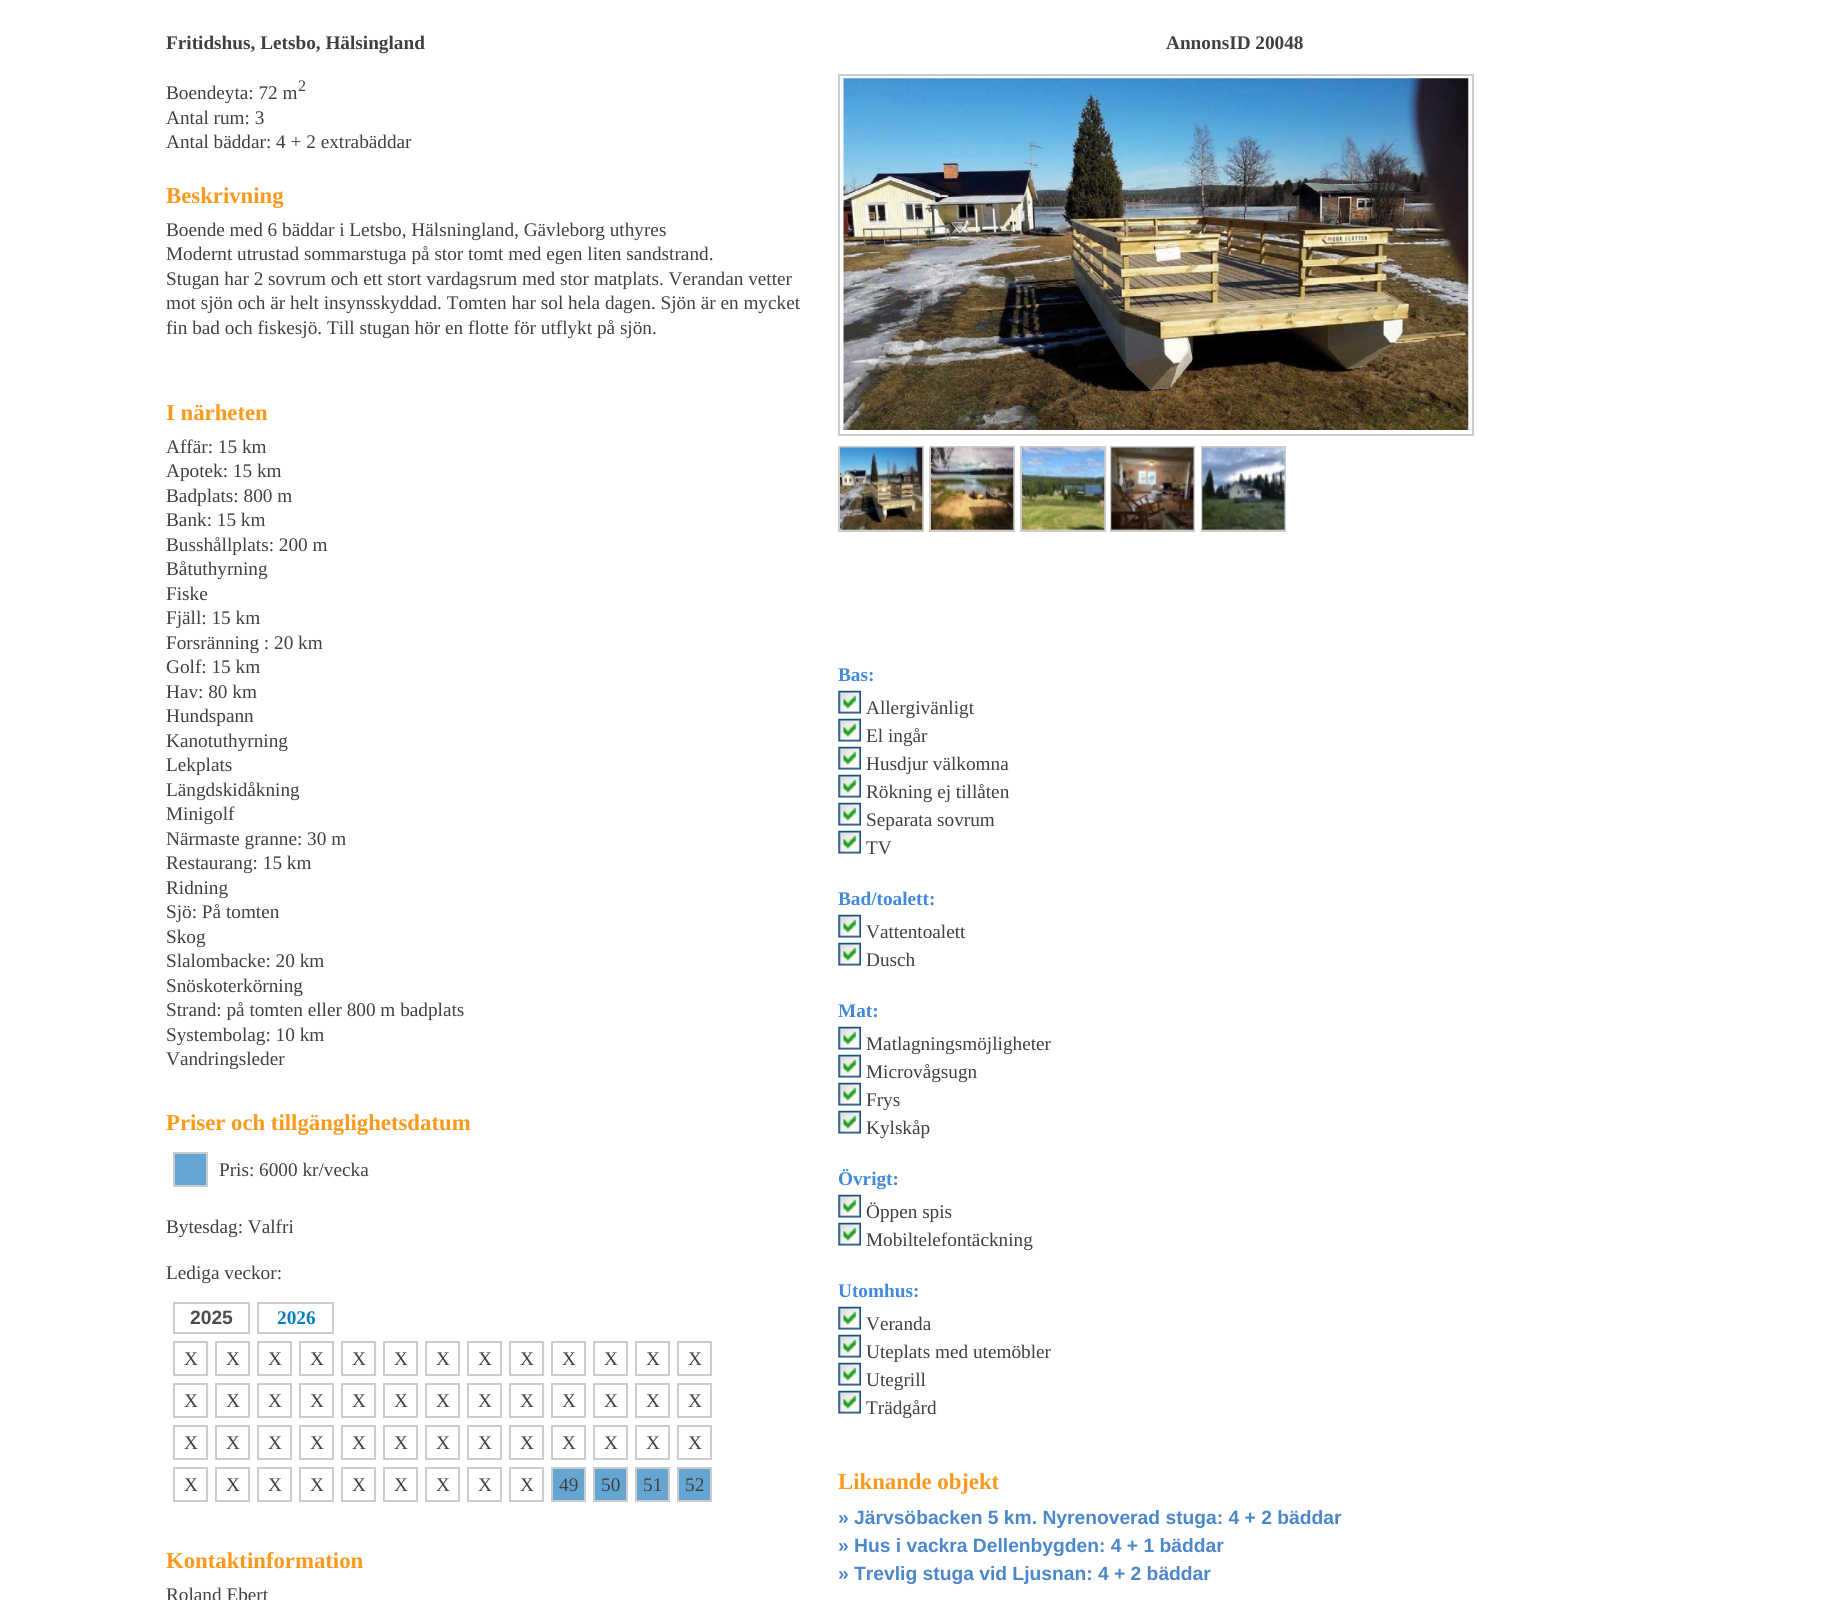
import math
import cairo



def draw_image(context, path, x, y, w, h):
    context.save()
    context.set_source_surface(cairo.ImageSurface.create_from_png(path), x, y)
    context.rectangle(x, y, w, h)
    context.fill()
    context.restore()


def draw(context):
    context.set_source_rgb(1, 1, 1)
    context.paint()
    context.set_source_rgb(101 / 255, 165 / 255, 209 / 255)
    context.rectangle(174, 1153, 33, 33)
    context.fill_preserve()
    context.set_source_rgb(204 / 255, 204 / 255, 204 / 255)
    context.stroke()
    context.rectangle(174, 1303, 75, 30)
    context.stroke()
    context.rectangle(258, 1303, 75, 30)
    context.stroke()
    context.rectangle(174, 1342, 33, 33)
    context.stroke()
    context.rectangle(216, 1342, 33, 33)
    context.stroke()
    context.rectangle(258, 1342, 33, 33)
    context.stroke()
    context.rectangle(300, 1342, 33, 33)
    context.stroke()
    context.rectangle(342, 1342, 33, 33)
    context.stroke()
    context.rectangle(384, 1342, 33, 33)
    context.stroke()
    context.rectangle(426, 1342, 33, 33)
    context.stroke()
    context.rectangle(468, 1342, 33, 33)
    context.stroke()
    context.rectangle(510, 1342, 33, 33)
    context.stroke()
    context.rectangle(552, 1342, 33, 33)
    context.stroke()
    context.rectangle(594, 1342, 33, 33)
    context.stroke()
    context.rectangle(636, 1342, 33, 33)
    context.stroke()
    context.rectangle(678, 1342, 33, 33)
    context.stroke()
    context.rectangle(174, 1384, 33, 33)
    context.stroke()
    context.rectangle(216, 1384, 33, 33)
    context.stroke()
    context.rectangle(258, 1384, 33, 33)
    context.stroke()
    context.rectangle(300, 1384, 33, 33)
    context.stroke()
    context.rectangle(342, 1384, 33, 33)
    context.stroke()
    context.rectangle(384, 1384, 33, 33)
    context.stroke()
    context.rectangle(426, 1384, 33, 33)
    context.stroke()
    context.rectangle(468, 1384, 33, 33)
    context.stroke()
    context.rectangle(510, 1384, 33, 33)
    context.stroke()
    context.rectangle(552, 1384, 33, 33)
    context.stroke()
    context.rectangle(594, 1384, 33, 33)
    context.stroke()
    context.rectangle(636, 1384, 33, 33)
    context.stroke()
    context.rectangle(678, 1384, 33, 33)
    context.stroke()
    context.rectangle(174, 1426, 33, 33)
    context.stroke()
    context.rectangle(216, 1426, 33, 33)
    context.stroke()
    context.rectangle(258, 1426, 33, 33)
    context.stroke()
    context.rectangle(300, 1426, 33, 33)
    context.stroke()
    context.rectangle(342, 1426, 33, 33)
    context.stroke()
    context.rectangle(384, 1426, 33, 33)
    context.stroke()
    context.rectangle(426, 1426, 33, 33)
    context.stroke()
    context.rectangle(468, 1426, 33, 33)
    context.stroke()
    context.rectangle(510, 1426, 33, 33)
    context.stroke()
    context.rectangle(552, 1426, 33, 33)
    context.stroke()
    context.rectangle(594, 1426, 33, 33)
    context.stroke()
    context.rectangle(636, 1426, 33, 33)
    context.stroke()
    context.rectangle(678, 1426, 33, 33)
    context.stroke()
    context.rectangle(174, 1468, 33, 33)
    context.stroke()
    context.rectangle(216, 1468, 33, 33)
    context.stroke()
    context.rectangle(258, 1468, 33, 33)
    context.stroke()
    context.rectangle(300, 1468, 33, 33)
    context.stroke()
    context.rectangle(342, 1468, 33, 33)
    context.stroke()
    context.rectangle(384, 1468, 33, 33)
    context.stroke()
    context.rectangle(426, 1468, 33, 33)
    context.stroke()
    context.rectangle(468, 1468, 33, 33)
    context.stroke()
    context.rectangle(510, 1468, 33, 33)
    context.stroke()
    context.set_source_rgb(101 / 255, 165 / 255, 209 / 255)
    context.rectangle(552, 1468, 33, 33)
    context.fill_preserve()
    context.set_source_rgb(204 / 255, 204 / 255, 204 / 255)
    context.stroke()
    context.set_source_rgb(101 / 255, 165 / 255, 209 / 255)
    context.rectangle(594, 1468, 33, 33)
    context.fill_preserve()
    context.set_source_rgb(204 / 255, 204 / 255, 204 / 255)
    context.stroke()
    context.set_source_rgb(101 / 255, 165 / 255, 209 / 255)
    context.rectangle(636, 1468, 33, 33)
    context.fill_preserve()
    context.set_source_rgb(204 / 255, 204 / 255, 204 / 255)
    context.stroke()
    context.set_source_rgb(101 / 255, 165 / 255, 209 / 255)
    context.rectangle(678, 1468, 33, 33)
    context.fill_preserve()
    context.set_source_rgb(204 / 255, 204 / 255, 204 / 255)
    context.stroke()
    context.rectangle(839, 75, 634, 360)
    context.stroke()
    draw_image(context, "images/1.png", 843, 78, 626, 352)
    context.rectangle(839, 447, 84, 84)
    context.stroke()
    context.rectangle(930, 447, 84, 84)
    context.stroke()
    context.rectangle(1021, 447, 84, 84)
    context.stroke()
    context.rectangle(1111, 447, 83, 84)
    context.stroke()
    context.rectangle(1202, 447, 83, 84)
    context.stroke()
    draw_image(context, "images/2.png", 840, 447, 83, 83)
    draw_image(context, "images/3.png", 931, 447, 83, 83)
    draw_image(context, "images/4.png", 1022, 447, 83, 83)
    draw_image(context, "images/5.png", 1111, 447, 83, 83)
    draw_image(context, "images/6.png", 1202, 447, 83, 83)
    draw_image(context, "images/7.png", 838, 690, 23, 24)
    draw_image(context, "images/7.png", 838, 718, 23, 24)
    draw_image(context, "images/7.png", 838, 746, 23, 24)
    draw_image(context, "images/7.png", 838, 774, 23, 24)
    draw_image(context, "images/7.png", 838, 802, 23, 24)
    draw_image(context, "images/7.png", 838, 830, 23, 24)
    draw_image(context, "images/7.png", 838, 914, 23, 24)
    draw_image(context, "images/7.png", 838, 942, 23, 24)
    draw_image(context, "images/7.png", 838, 1026, 23, 24)
    draw_image(context, "images/7.png", 838, 1054, 23, 24)
    draw_image(context, "images/7.png", 838, 1082, 23, 24)
    draw_image(context, "images/7.png", 838, 1110, 23, 24)
    draw_image(context, "images/7.png", 838, 1194, 23, 24)
    draw_image(context, "images/7.png", 838, 1222, 23, 24)
    draw_image(context, "images/7.png", 838, 1306, 23, 24)
    draw_image(context, "images/7.png", 838, 1334, 23, 24)
    draw_image(context, "images/7.png", 838, 1362, 23, 24)
    draw_image(context, "images/7.png", 838, 1390, 23, 24)
    context.select_font_face("Liberation Serif", cairo.FontSlant.NORMAL, cairo.FontWeight.BOLD)
    context.set_font_size(19.25)
    context.set_source_rgb(64 / 255, 64 / 255, 64 / 255)
    context.move_to(166, 49)
    context.show_text("Fritidshus, Letsbo, Hälsingland")
    context.move_to(1166, 49)
    context.show_text("AnnonsID 20048")
    context.select_font_face("Liberation Serif")
    context.move_to(166, 99)
    context.show_text("Boendeyta: 72 m")
    context.set_font_size(16)
    context.move_to(298, 91)
    context.show_text("2")
    context.set_font_size(19.25)
    context.move_to(166, 124)
    context.show_text("Antal rum: 3")
    context.move_to(166, 148)
    context.show_text("Antal bäddar: 4 + 2 extrabäddar")
    context.select_font_face("Liberation Serif", cairo.FontSlant.NORMAL, cairo.FontWeight.BOLD)
    context.set_font_size(22.75)
    context.set_source_rgb(251 / 255, 153 / 255, 27 / 255)
    context.move_to(166, 203)
    context.show_text("Beskrivning")
    context.select_font_face("Liberation Serif")
    context.set_font_size(19.25)
    context.set_source_rgb(64 / 255, 64 / 255, 64 / 255)
    context.move_to(166, 236)
    context.show_text("Boende med 6 bäddar i Letsbo, Hälsningland, Gävleborg uthyres")
    context.move_to(166, 260)
    context.show_text("Modernt utrustad sommarstuga på stor tomt med egen liten sandstrand.")
    context.move_to(166, 285)
    context.show_text("Stugan har 2 sovrum och ett stort vardagsrum med stor matplats. Verandan vetter")
    context.move_to(166, 309)
    context.show_text("mot sjön och är helt insynsskyddad. Tomten har sol hela dagen. Sjön är en mycket")
    context.move_to(166, 334)
    context.show_text("fin bad och fiskesjö. Till stugan hör en flotte för utflykt på sjön.")
    context.select_font_face("Liberation Serif", cairo.FontSlant.NORMAL, cairo.FontWeight.BOLD)
    context.set_font_size(22.75)
    context.set_source_rgb(251 / 255, 153 / 255, 27 / 255)
    context.move_to(166, 420)
    context.show_text("I närheten")
    context.select_font_face("Liberation Serif")
    context.set_font_size(19.25)
    context.set_source_rgb(64 / 255, 64 / 255, 64 / 255)
    context.move_to(166, 453)
    context.show_text("Affär: 15 km")
    context.move_to(166, 477)
    context.show_text("Apotek: 15 km")
    context.move_to(166, 502)
    context.show_text("Badplats: 800 m")
    context.move_to(166, 526)
    context.show_text("Bank: 15 km")
    context.move_to(166, 551)
    context.show_text("Busshållplats: 200 m")
    context.move_to(166, 575)
    context.show_text("Båtuthyrning")
    context.move_to(166, 600)
    context.show_text("Fiske")
    context.move_to(166, 624)
    context.show_text("Fjäll: 15 km")
    context.move_to(166, 649)
    context.show_text("Forsränning : 20 km")
    context.move_to(166, 673)
    context.show_text("Golf: 15 km")
    context.move_to(166, 698)
    context.show_text("Hav: 80 km")
    context.move_to(166, 722)
    context.show_text("Hundspann")
    context.move_to(166, 747)
    context.show_text("Kanotuthyrning")
    context.move_to(166, 771)
    context.show_text("Lekplats")
    context.move_to(166, 796)
    context.show_text("Längdskidåkning")
    context.move_to(166, 820)
    context.show_text("Minigolf")
    context.move_to(166, 845)
    context.show_text("Närmaste granne: 30 m")
    context.move_to(166, 869)
    context.show_text("Restaurang: 15 km")
    context.move_to(166, 894)
    context.show_text("Ridning")
    context.move_to(166, 918)
    context.show_text("Sjö: På tomten")
    context.move_to(166, 943)
    context.show_text("Skog")
    context.move_to(166, 967)
    context.show_text("Slalombacke: 20 km")
    context.move_to(166, 992)
    context.show_text("Snöskoterkörning")
    context.move_to(166, 1016)
    context.show_text("Strand: på tomten eller 800 m badplats")
    context.move_to(166, 1041)
    context.show_text("Systembolag: 10 km")
    context.move_to(166, 1065)
    context.show_text("Vandringsleder")
    context.select_font_face("Liberation Serif", cairo.FontSlant.NORMAL, cairo.FontWeight.BOLD)
    context.set_font_size(22.75)
    context.set_source_rgb(251 / 255, 153 / 255, 27 / 255)
    context.move_to(166, 1130)
    context.show_text("Priser och tillgänglighetsdatum")
    context.select_font_face("Liberation Serif")
    context.set_font_size(19.25)
    context.set_source_rgb(64 / 255, 64 / 255, 64 / 255)
    context.move_to(219, 1176)
    context.show_text("Pris: 6000 kr/vecka")
    context.move_to(166, 1233)
    context.show_text("Bytesdag: Valfri")
    context.move_to(166, 1279)
    context.show_text("Lediga veckor:")
    context.select_font_face("Liberation Sans", cairo.FontSlant.NORMAL, cairo.FontWeight.BOLD)
    context.set_source_rgb(76 / 255, 76 / 255, 76 / 255)
    context.move_to(190, 1324)
    context.show_text("2025")
    context.select_font_face("Liberation Serif", cairo.FontSlant.NORMAL, cairo.FontWeight.BOLD)
    context.set_source_rgb(0, 126 / 255, 195 / 255)
    context.move_to(277, 1324)
    context.show_text("2026")
    context.select_font_face("Liberation Serif")
    context.set_source_rgb(64 / 255, 64 / 255, 64 / 255)
    context.move_to(184, 1365)
    context.show_text("X")
    context.move_to(226, 1365)
    context.show_text("X")
    context.move_to(268, 1365)
    context.show_text("X")
    context.move_to(310, 1365)
    context.show_text("X")
    context.move_to(352, 1365)
    context.show_text("X")
    context.move_to(394, 1365)
    context.show_text("X")
    context.move_to(436, 1365)
    context.show_text("X")
    context.move_to(478, 1365)
    context.show_text("X")
    context.move_to(520, 1365)
    context.show_text("X")
    context.move_to(562, 1365)
    context.show_text("X")
    context.move_to(604, 1365)
    context.show_text("X")
    context.move_to(646, 1365)
    context.show_text("X")
    context.move_to(688, 1365)
    context.show_text("X")
    context.move_to(184, 1407)
    context.show_text("X")
    context.move_to(226, 1407)
    context.show_text("X")
    context.move_to(268, 1407)
    context.show_text("X")
    context.move_to(310, 1407)
    context.show_text("X")
    context.move_to(352, 1407)
    context.show_text("X")
    context.move_to(394, 1407)
    context.show_text("X")
    context.move_to(436, 1407)
    context.show_text("X")
    context.move_to(478, 1407)
    context.show_text("X")
    context.move_to(520, 1407)
    context.show_text("X")
    context.move_to(562, 1407)
    context.show_text("X")
    context.move_to(604, 1407)
    context.show_text("X")
    context.move_to(646, 1407)
    context.show_text("X")
    context.move_to(688, 1407)
    context.show_text("X")
    context.move_to(184, 1449)
    context.show_text("X")
    context.move_to(226, 1449)
    context.show_text("X")
    context.move_to(268, 1449)
    context.show_text("X")
    context.move_to(310, 1449)
    context.show_text("X")
    context.move_to(352, 1449)
    context.show_text("X")
    context.move_to(394, 1449)
    context.show_text("X")
    context.move_to(436, 1449)
    context.show_text("X")
    context.move_to(478, 1449)
    context.show_text("X")
    context.move_to(520, 1449)
    context.show_text("X")
    context.move_to(562, 1449)
    context.show_text("X")
    context.move_to(604, 1449)
    context.show_text("X")
    context.move_to(646, 1449)
    context.show_text("X")
    context.move_to(688, 1449)
    context.show_text("X")
    context.move_to(184, 1491)
    context.show_text("X")
    context.move_to(226, 1491)
    context.show_text("X")
    context.move_to(268, 1491)
    context.show_text("X")
    context.move_to(310, 1491)
    context.show_text("X")
    context.move_to(352, 1491)
    context.show_text("X")
    context.move_to(394, 1491)
    context.show_text("X")
    context.move_to(436, 1491)
    context.show_text("X")
    context.move_to(478, 1491)
    context.show_text("X")
    context.move_to(520, 1491)
    context.show_text("X")
    context.move_to(559, 1491)
    context.show_text("49")
    context.move_to(601, 1491)
    context.show_text("50")
    context.move_to(643, 1491)
    context.show_text("51")
    context.move_to(685, 1491)
    context.show_text("52")
    context.select_font_face("Liberation Serif", cairo.FontSlant.NORMAL, cairo.FontWeight.BOLD)
    context.set_font_size(22.75)
    context.set_source_rgb(251 / 255, 153 / 255, 27 / 255)
    context.move_to(166, 1568)
    context.show_text("Kontaktinformation")
    context.select_font_face("Liberation Serif")
    context.set_font_size(19.25)
    context.set_source_rgb(64 / 255, 64 / 255, 64 / 255)
    context.move_to(166, 1601)
    context.show_text("Roland Ebert")
    context.select_font_face("Liberation Serif", cairo.FontSlant.NORMAL, cairo.FontWeight.BOLD)
    context.set_source_rgb(65 / 255, 137 / 255, 221 / 255)
    context.move_to(838, 681)
    context.show_text("Bas:")
    context.select_font_face("Liberation Serif")
    context.set_source_rgb(64 / 255, 64 / 255, 64 / 255)
    context.move_to(866, 714)
    context.show_text("Allergivänligt")
    context.move_to(866, 742)
    context.show_text("El ingår")
    context.move_to(866, 770)
    context.show_text("Husdjur välkomna")
    context.move_to(866, 798)
    context.show_text("Rökning ej tillåten")
    context.move_to(866, 826)
    context.show_text("Separata sovrum")
    context.move_to(866, 854)
    context.show_text("TV")
    context.select_font_face("Liberation Serif", cairo.FontSlant.NORMAL, cairo.FontWeight.BOLD)
    context.set_source_rgb(65 / 255, 137 / 255, 221 / 255)
    context.move_to(838, 905)
    context.show_text("Bad/toalett:")
    context.select_font_face("Liberation Serif")
    context.set_source_rgb(64 / 255, 64 / 255, 64 / 255)
    context.move_to(866, 938)
    context.show_text("Vattentoalett")
    context.move_to(866, 966)
    context.show_text("Dusch")
    context.select_font_face("Liberation Serif", cairo.FontSlant.NORMAL, cairo.FontWeight.BOLD)
    context.set_source_rgb(65 / 255, 137 / 255, 221 / 255)
    context.move_to(838, 1017)
    context.show_text("Mat:")
    context.select_font_face("Liberation Serif")
    context.set_source_rgb(64 / 255, 64 / 255, 64 / 255)
    context.move_to(866, 1050)
    context.show_text("Matlagningsmöjligheter")
    context.move_to(866, 1078)
    context.show_text("Microvågsugn")
    context.move_to(866, 1106)
    context.show_text("Frys")
    context.move_to(866, 1134)
    context.show_text("Kylskåp")
    context.select_font_face("Liberation Serif", cairo.FontSlant.NORMAL, cairo.FontWeight.BOLD)
    context.set_source_rgb(65 / 255, 137 / 255, 221 / 255)
    context.move_to(838, 1185)
    context.show_text("Övrigt:")
    context.select_font_face("Liberation Serif")
    context.set_source_rgb(64 / 255, 64 / 255, 64 / 255)
    context.move_to(866, 1218)
    context.show_text("Öppen spis")
    context.move_to(866, 1246)
    context.show_text("Mobiltelefontäckning")
    context.select_font_face("Liberation Serif", cairo.FontSlant.NORMAL, cairo.FontWeight.BOLD)
    context.set_source_rgb(65 / 255, 137 / 255, 221 / 255)
    context.move_to(838, 1297)
    context.show_text("Utomhus:")
    context.select_font_face("Liberation Serif")
    context.set_source_rgb(64 / 255, 64 / 255, 64 / 255)
    context.move_to(866, 1330)
    context.show_text("Veranda")
    context.move_to(866, 1358)
    context.show_text("Uteplats med utemöbler")
    context.move_to(866, 1386)
    context.show_text("Utegrill")
    context.move_to(866, 1414)
    context.show_text("Trädgård")
    context.select_font_face("Liberation Serif", cairo.FontSlant.NORMAL, cairo.FontWeight.BOLD)
    context.set_font_size(22.75)
    context.set_source_rgb(251 / 255, 153 / 255, 27 / 255)
    context.move_to(838, 1489)
    context.show_text("Liknande objekt")
    context.select_font_face("Liberation Sans", cairo.FontSlant.NORMAL, cairo.FontWeight.BOLD)
    context.set_font_size(19.25)
    context.set_source_rgb(75 / 255, 135 / 255, 202 / 255)
    context.move_to(838, 1524)
    context.show_text("» Järvsöbacken 5 km. Nyrenoverad stuga: 4 + 2 bäddar")
    context.move_to(838, 1552)
    context.show_text("» Hus i vackra Dellenbygden: 4 + 1 bäddar")
    context.move_to(838, 1580)
    context.show_text("» Trevlig stuga vid Ljusnan: 4 + 2 bäddar")


surface = cairo.ImageSurface(cairo.Format.RGB24, 1833, 1600)
context = cairo.Context(surface)
options = cairo.FontOptions()
options.set_hint_metrics(cairo.HintMetrics.OFF)
options.set_hint_style(cairo.HintStyle.NONE)
context.set_font_options(options)
context.set_miter_limit(4)
draw(context)
surface.write_to_png("out.png")
